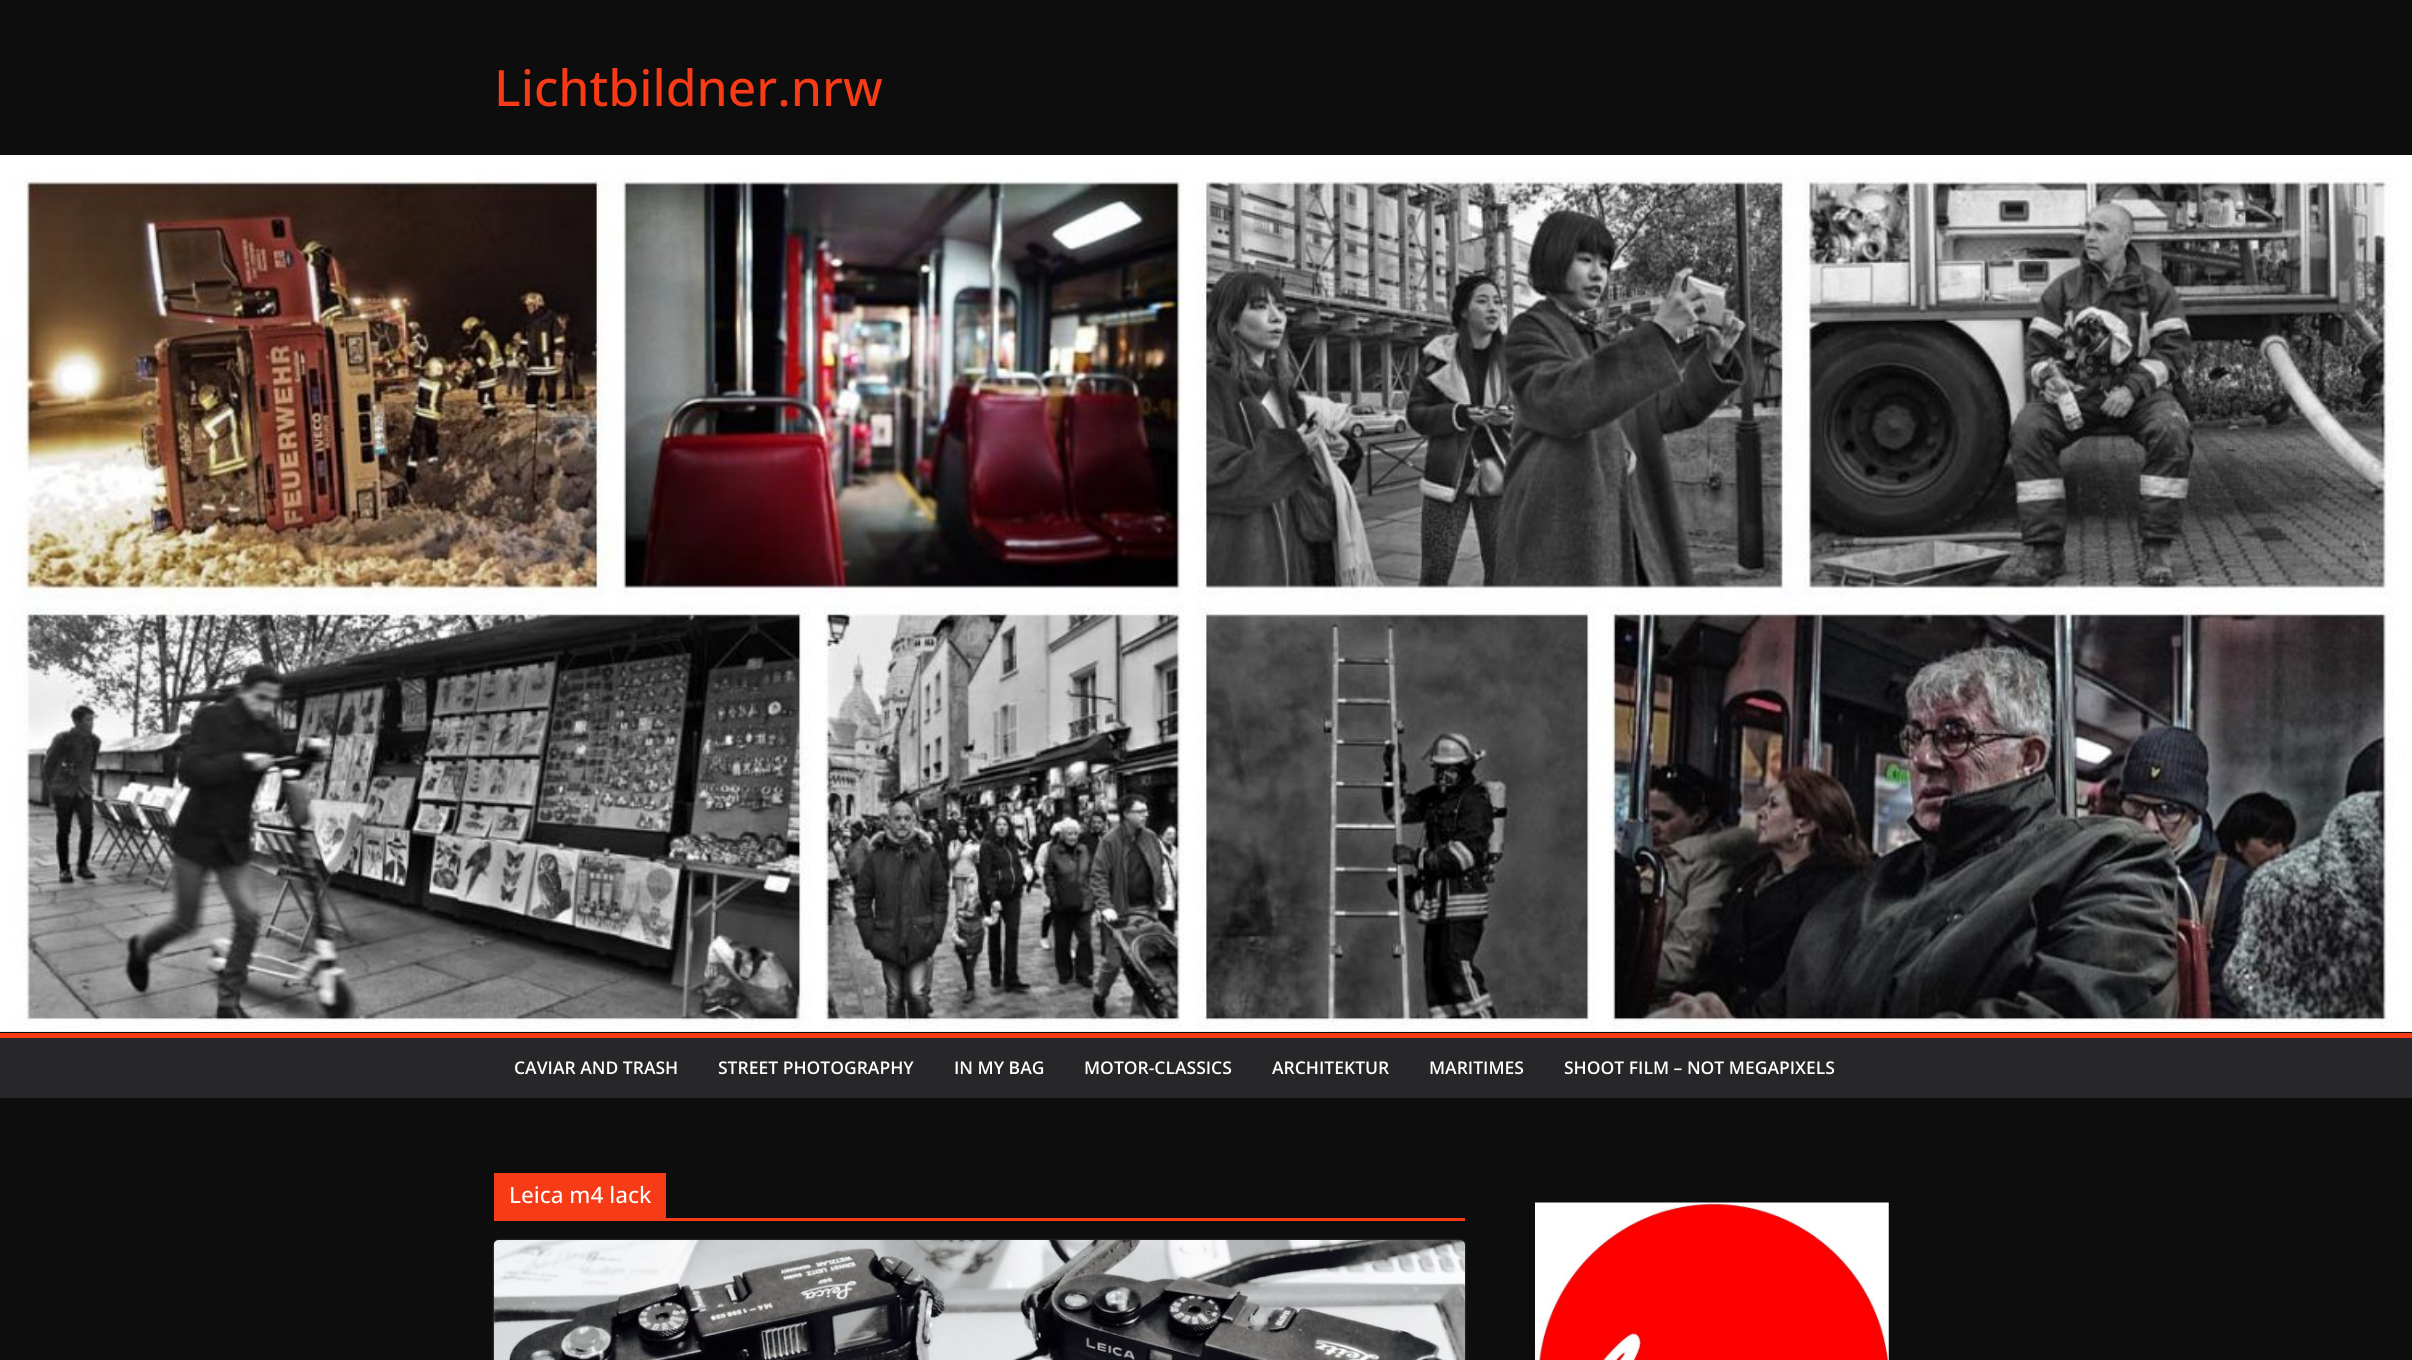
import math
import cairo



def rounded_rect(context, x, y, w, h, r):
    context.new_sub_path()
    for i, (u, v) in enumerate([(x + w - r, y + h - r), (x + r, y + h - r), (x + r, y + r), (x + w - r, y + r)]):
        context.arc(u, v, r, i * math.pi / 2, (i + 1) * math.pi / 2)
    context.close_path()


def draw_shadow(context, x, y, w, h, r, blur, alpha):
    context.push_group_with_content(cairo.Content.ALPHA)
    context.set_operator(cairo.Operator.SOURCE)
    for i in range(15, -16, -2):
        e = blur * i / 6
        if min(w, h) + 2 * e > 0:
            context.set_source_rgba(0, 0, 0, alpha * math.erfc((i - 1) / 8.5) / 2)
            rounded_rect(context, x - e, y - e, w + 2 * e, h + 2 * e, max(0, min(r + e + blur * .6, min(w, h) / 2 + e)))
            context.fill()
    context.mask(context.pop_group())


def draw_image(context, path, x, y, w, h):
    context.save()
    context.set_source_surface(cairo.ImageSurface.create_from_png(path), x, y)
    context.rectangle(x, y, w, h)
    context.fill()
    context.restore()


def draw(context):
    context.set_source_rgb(13 / 255, 13 / 255, 13 / 255)
    context.paint()
    context.set_source_rgb(235 / 255, 235 / 255, 235 / 255)
    context.rectangle(0, 1031, 2412, 1)
    context.fill()
    draw_image(context, "images/1.png", 0, 155, 2412, 877)
    context.set_source_rgb(39 / 255, 39 / 255, 42 / 255)
    context.rectangle(0, 1038, 2412, 60)
    context.fill()
    context.set_source_rgb(247 / 255, 59 / 255, 22 / 255)
    context.rectangle(0, 1033, 2412, 5)
    context.fill()
    context.rectangle(494, 1218, 971, 3)
    context.fill()
    context.rectangle(494, 1173, 172, 45)
    context.fill()
    context.set_source_rgb(1, 1, 1)
    draw_shadow(context, 494, 1240, 971, 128, 5, 1, 0.24)
    draw_image(context, "images/2.png", 493, 1240, 972, 120)
    draw_image(context, "images/3.png", 1535, 1202, 354, 158)
    context.select_font_face("Open Sans Medium")
    context.set_font_size(50)
    context.set_source_rgb(247 / 255, 59 / 255, 22 / 255)
    context.move_to(494, 106)
    context.show_text("Lichtbildner.nrw")
    context.select_font_face("Open Sans SemiBold")
    context.set_font_size(17.5)
    context.set_source_rgb(1, 1, 1)
    context.move_to(514, 1074)
    context.show_text("CAVIAR AND TRASH")
    context.move_to(718, 1074)
    context.show_text("STREET PHOTOGRAPHY")
    context.move_to(954, 1074)
    context.show_text("IN MY BAG")
    context.move_to(1084, 1074)
    context.show_text("MOTOR-CLASSICS")
    context.move_to(1272, 1074)
    context.show_text("ARCHITEKTUR")
    context.move_to(1429, 1074)
    context.show_text("MARITIMES")
    context.move_to(1564, 1074)
    context.show_text("SHOOT FILM – NOT MEGAPIXELS")
    context.select_font_face("Open Sans Medium")
    context.set_font_size(22.5)
    context.move_to(509, 1203)
    context.show_text("Leica m4 lack")


surface = cairo.ImageSurface(cairo.Format.RGB24, 2412, 1360)
context = cairo.Context(surface)
options = cairo.FontOptions()
options.set_hint_metrics(cairo.HintMetrics.OFF)
options.set_hint_style(cairo.HintStyle.NONE)
context.set_font_options(options)
context.set_miter_limit(4)
draw(context)
surface.write_to_png("out.png")
